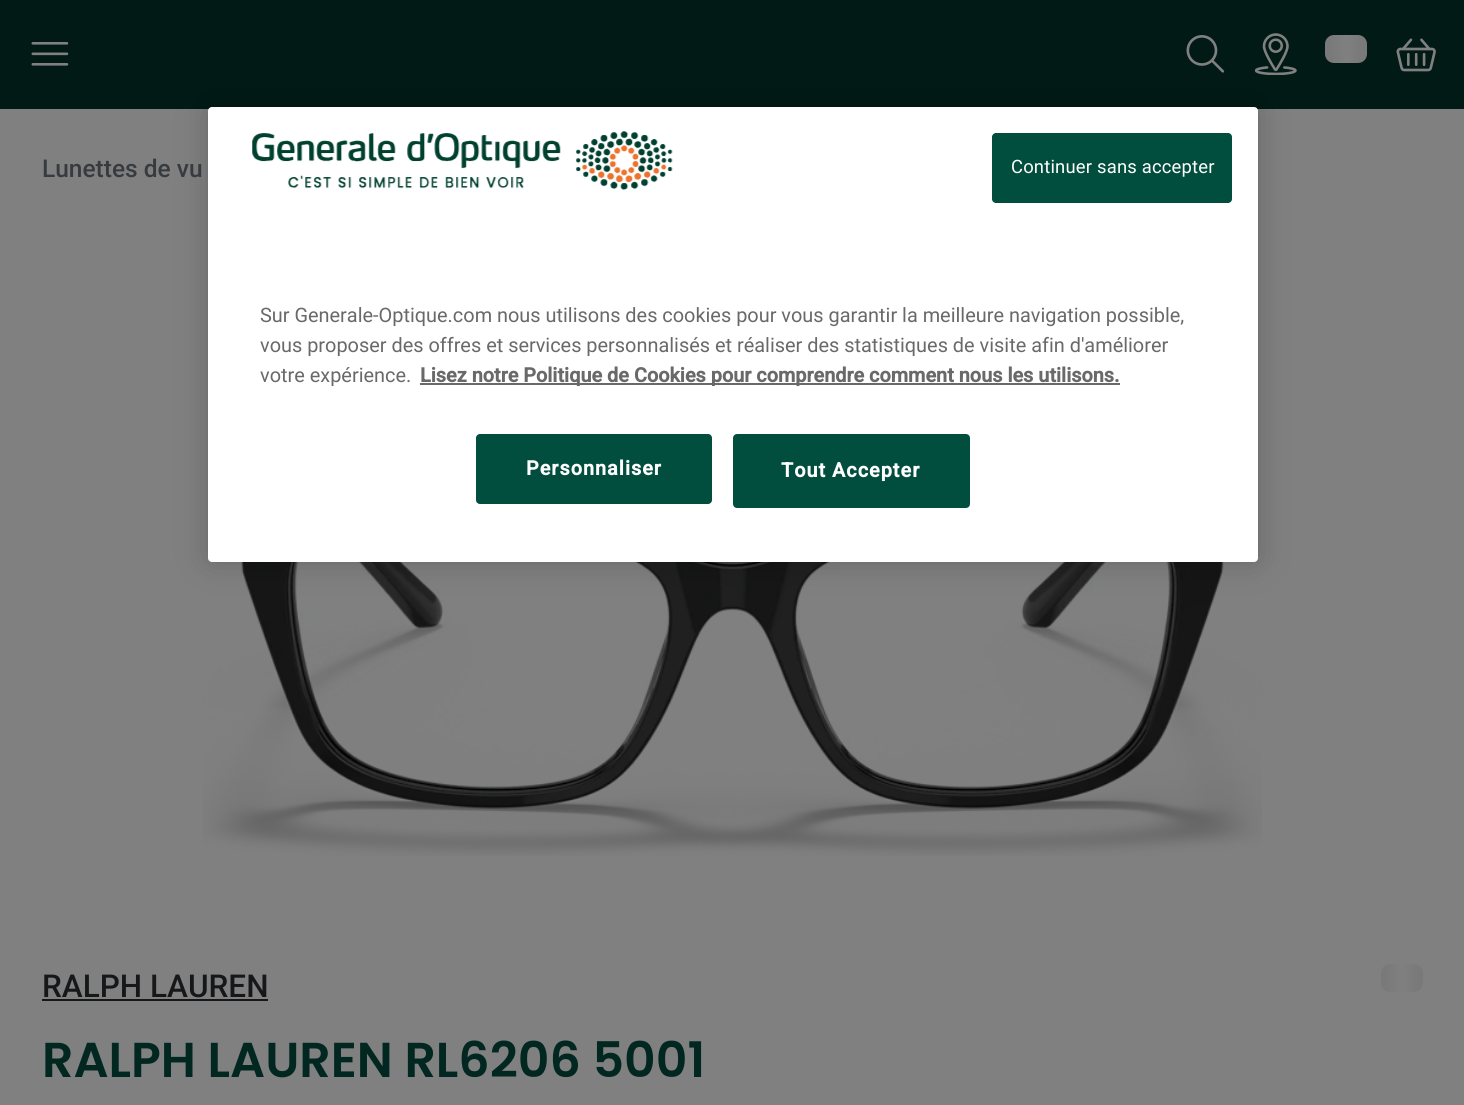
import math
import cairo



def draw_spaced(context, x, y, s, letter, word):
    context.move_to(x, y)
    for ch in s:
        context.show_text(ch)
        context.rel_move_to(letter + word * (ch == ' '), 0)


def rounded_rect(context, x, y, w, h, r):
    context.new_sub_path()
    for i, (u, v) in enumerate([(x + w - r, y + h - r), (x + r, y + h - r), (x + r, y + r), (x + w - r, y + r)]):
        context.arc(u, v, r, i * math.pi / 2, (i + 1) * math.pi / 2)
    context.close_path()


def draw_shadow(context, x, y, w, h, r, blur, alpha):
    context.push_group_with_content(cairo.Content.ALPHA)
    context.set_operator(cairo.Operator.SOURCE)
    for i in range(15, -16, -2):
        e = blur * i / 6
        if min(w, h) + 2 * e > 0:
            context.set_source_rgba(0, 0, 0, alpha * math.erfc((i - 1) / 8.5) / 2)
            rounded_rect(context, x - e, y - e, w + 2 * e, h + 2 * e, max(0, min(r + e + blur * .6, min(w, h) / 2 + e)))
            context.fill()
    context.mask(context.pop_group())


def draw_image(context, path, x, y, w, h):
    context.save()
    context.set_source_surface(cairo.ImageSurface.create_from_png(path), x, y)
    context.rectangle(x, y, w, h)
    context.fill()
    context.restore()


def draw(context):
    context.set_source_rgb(128 / 255, 128 / 255, 128 / 255)
    context.paint()
    context.set_source_rgb(1 / 255, 26 / 255, 21 / 255)
    context.rectangle(0, 0, 1464, 109)
    context.fill()
    draw_image(context, "images/1.png", 31, 42, 38, 24)
    draw_image(context, "images/2.png", 1186, 35, 39, 38)
    draw_image(context, "images/3.png", 1255, 33, 42, 42)
    gradient = cairo.LinearGradient(1325, 35, 1367, 35)
    gradient.add_color_stop_rgba(0.1, 121 / 255, 121 / 255, 122 / 255, 1)
    gradient.add_color_stop_rgba(0.5, 128 / 255, 128 / 255, 128 / 255, 1)
    gradient.add_color_stop_rgba(0.9, 121 / 255, 121 / 255, 122 / 255, 1)
    context.set_source(gradient)
    rounded_rect(context, 1325, 35, 42, 28, 9)
    context.fill()
    draw_image(context, "images/4.png", 1396, 38, 40, 34)
    draw_image(context, "images/5.png", 203, 562, 1059, 294)
    context.set_source_rgb(22 / 255, 23 / 255, 25 / 255)
    context.rectangle(42, 999, 226, 2)
    context.fill()
    gradient = cairo.LinearGradient(1381, 964, 1423, 964)
    gradient.add_color_stop_rgba(0.1, 121 / 255, 121 / 255, 122 / 255, 1)
    gradient.add_color_stop_rgba(0.5, 128 / 255, 128 / 255, 128 / 255, 1)
    gradient.add_color_stop_rgba(0.9, 121 / 255, 121 / 255, 122 / 255, 1)
    context.set_source(gradient)
    rounded_rect(context, 1381, 964, 42, 28, 9)
    context.fill()
    context.set_source_rgb(0, 0, 0)
    draw_shadow(context, 208, 107, 1050, 455, 4, 16, 0.2)
    context.set_source_rgb(1, 1, 1)
    rounded_rect(context, 208, 107, 1050, 455, 4)
    context.fill()
    draw_image(context, "images/6.png", 252, 131, 421, 60)
    context.set_source_rgb(1 / 255, 78 / 255, 63 / 255)
    rounded_rect(context, 992, 133, 240, 70, 4)
    context.fill()
    context.set_source_rgb(105 / 255, 105 / 255, 105 / 255)
    context.rectangle(420, 383, 700, 2)
    context.fill()
    context.set_source_rgb(1 / 255, 78 / 255, 63 / 255)
    rounded_rect(context, 476, 434, 236, 70, 4)
    context.fill()
    rounded_rect(context, 734, 435, 235, 72, 3)
    context.fill_preserve()
    context.stroke()
    context.select_font_face("Roboto Medium")
    context.set_font_size(24.5)
    context.set_source_rgb(55 / 255, 59 / 255, 63 / 255)
    context.move_to(42, 177)
    context.show_text("Lunettes de vu")
    context.set_font_size(31.5)
    context.set_source_rgb(22 / 255, 23 / 255, 25 / 255)
    context.move_to(42, 997)
    context.show_text("RALPH LAUREN")
    context.select_font_face("Poppins SemiBold")
    context.set_font_size(49)
    context.set_source_rgb(1 / 255, 39 / 255, 32 / 255)
    context.move_to(42, 1077)
    context.show_text("RALPH LAUREN RL6206 5001")
    context.select_font_face("Roboto")
    context.set_font_size(18.4)
    context.set_source_rgb(1, 1, 1)
    draw_spaced(context, 1011, 173, "Continuer sans accepter", 0.2, 0)
    context.set_font_size(19.9)
    context.set_source_rgb(105 / 255, 105 / 255, 105 / 255)
    context.move_to(260, 322)
    context.show_text("Sur Generale-Optique.com nous utilisons des cookies pour vous garantir la meilleure navigation possible,")
    context.move_to(260, 352)
    context.show_text("vous proposer des offres et services personnalisés et réaliser des statistiques de visite afin d'améliorer")
    context.move_to(260, 382)
    context.show_text("votre expérience.")
    context.select_font_face("Roboto", cairo.FontSlant.NORMAL, cairo.FontWeight.BOLD)
    context.move_to(420, 382)
    context.show_text("Lisez notre Politique de Cookies pour comprendre comment nous les utilisons.")
    context.set_source_rgb(1, 1, 1)
    draw_spaced(context, 526, 475, "Personnaliser", 1, 0)
    draw_spaced(context, 781, 477, "Tout Accepter", 1, 0)


surface = cairo.ImageSurface(cairo.Format.RGB24, 1464, 1105)
context = cairo.Context(surface)
options = cairo.FontOptions()
options.set_hint_metrics(cairo.HintMetrics.OFF)
options.set_hint_style(cairo.HintStyle.NONE)
context.set_font_options(options)
context.set_miter_limit(4)
draw(context)
surface.write_to_png("out.png")
